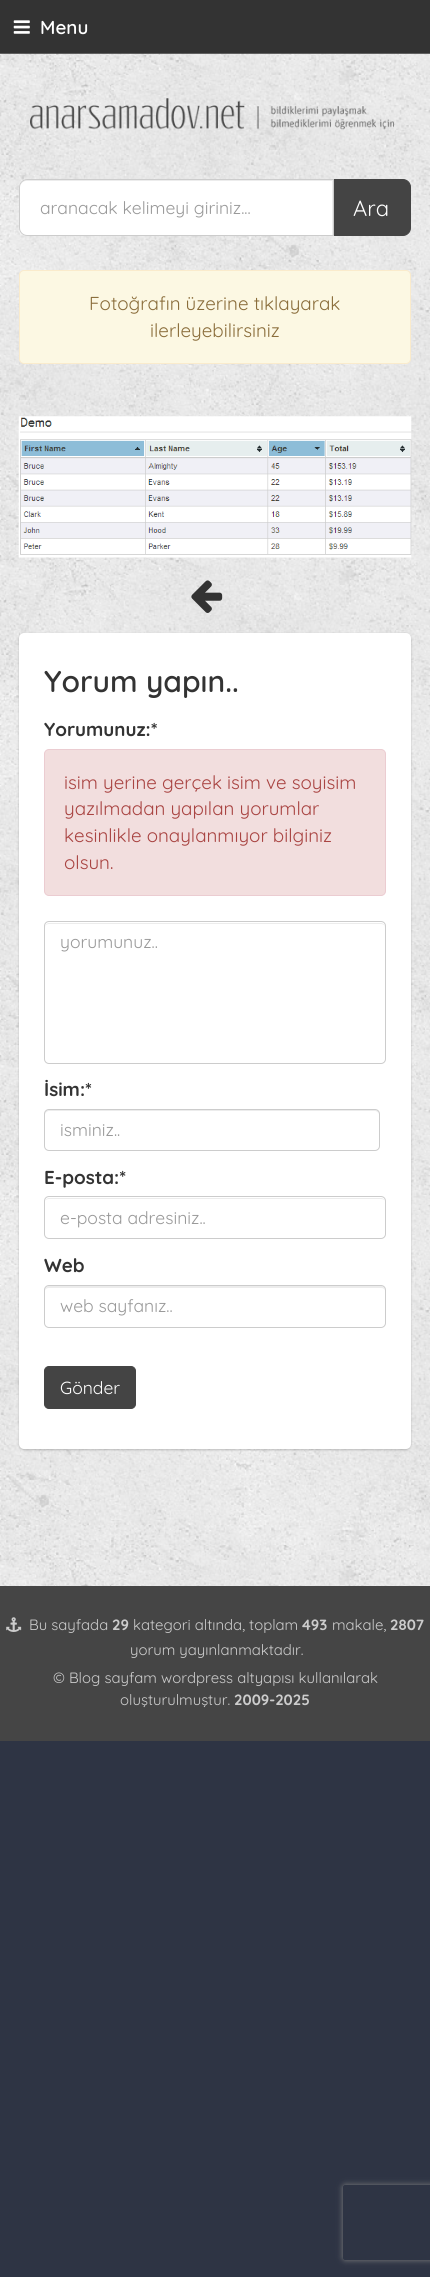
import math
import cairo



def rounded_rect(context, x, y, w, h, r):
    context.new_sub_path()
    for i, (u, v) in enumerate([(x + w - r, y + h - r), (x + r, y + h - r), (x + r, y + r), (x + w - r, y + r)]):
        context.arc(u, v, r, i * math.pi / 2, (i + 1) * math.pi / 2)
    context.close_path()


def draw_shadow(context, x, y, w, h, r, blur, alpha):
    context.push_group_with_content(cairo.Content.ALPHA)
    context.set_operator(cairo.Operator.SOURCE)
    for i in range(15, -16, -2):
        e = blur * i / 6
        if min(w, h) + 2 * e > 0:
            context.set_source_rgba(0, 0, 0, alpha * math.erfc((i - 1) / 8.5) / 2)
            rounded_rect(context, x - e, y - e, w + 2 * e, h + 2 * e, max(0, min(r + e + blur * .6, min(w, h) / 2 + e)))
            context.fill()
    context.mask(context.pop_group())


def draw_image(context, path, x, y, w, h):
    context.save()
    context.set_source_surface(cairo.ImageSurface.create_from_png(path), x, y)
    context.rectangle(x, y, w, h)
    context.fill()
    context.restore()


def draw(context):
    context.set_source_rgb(46 / 255, 52 / 255, 68 / 255)
    context.paint()
    context.set_source_rgb(51 / 255, 51 / 255, 51 / 255)
    context.rectangle(0, 0, 430, 54)
    context.fill()
    draw_image(context, "images/1.png", 13, 20, 17, 14)
    draw_image(context, "images/2.png", 0, 53, 430, 1533)
    draw_image(context, "images/3.png", 30, 98, 364, 32)
    context.set_source_rgb(68 / 255, 68 / 255, 68 / 255)
    context.new_path()
    context.move_to(333.5, 179.5)
    context.line_to(403, 179.5)
    context.curve_to(407, 179.5, 410.5, 183, 410.5, 187)
    context.line_to(410.5, 228)
    context.curve_to(410.5, 232, 407, 235.5, 403, 235.5)
    context.line_to(333.5, 235.5)
    context.close_path()
    context.fill_preserve()
    context.set_line_width(1)
    context.stroke()
    context.set_source_rgb(1, 1, 1)
    context.new_path()
    context.move_to(27, 179)
    context.line_to(334, 179)
    context.line_to(334, 236)
    context.line_to(27, 236)
    context.curve_to(22.5, 236, 19, 232.5, 19, 228)
    context.line_to(19, 187)
    context.curve_to(19, 182.5, 22.5, 179, 27, 179)
    context.close_path()
    context.fill()
    context.set_source_rgb(236 / 255, 236 / 255, 236 / 255)
    context.new_path()
    context.move_to(26, 181)
    context.line_to(332, 181)
    context.line_to(332, 235)
    context.line_to(333, 235)
    context.line_to(333, 180)
    context.line_to(25, 180)
    context.curve_to(21, 181, 20, 185, 20, 188)
    context.curve_to(20, 184, 23, 181, 26, 181)
    context.close_path()
    context.fill()
    context.new_path()
    context.move_to(27, 179.5)
    context.line_to(333.5, 179.5)
    context.line_to(333.5, 235.5)
    context.line_to(27, 235.5)
    context.curve_to(23, 235.5, 19.5, 232, 19.5, 228)
    context.line_to(19.5, 187)
    context.curve_to(19.5, 183, 23, 179.5, 27, 179.5)
    context.close_path()
    context.set_source_rgb(204 / 255, 204 / 255, 204 / 255)
    context.stroke()
    context.set_source_rgb(252 / 255, 248 / 255, 227 / 255)
    rounded_rect(context, 19.5, 270.5, 391, 93, 4.5)
    context.fill_preserve()
    context.set_source_rgb(250 / 255, 235 / 255, 204 / 255)
    context.stroke()
    draw_image(context, "images/4.png", 18, 416, 394, 142)
    draw_image(context, "images/5.png", 191, 580, 32, 33)
    context.set_source_rgb(0, 0, 0)
    draw_shadow(context, 19, 634, 392, 816, 5, 1, 0.2)
    context.set_source_rgb(1, 1, 1)
    rounded_rect(context, 19, 633, 392, 816, 5)
    context.fill()
    context.set_source_rgb(242 / 255, 222 / 255, 222 / 255)
    rounded_rect(context, 44.5, 749.5, 341, 146, 4.5)
    context.fill_preserve()
    context.set_source_rgb(235 / 255, 204 / 255, 209 / 255)
    context.stroke()
    context.set_source_rgb(236 / 255, 236 / 255, 236 / 255)
    context.new_path()
    context.move_to(49, 924)
    context.line_to(381, 924)
    context.curve_to(383, 924, 385, 925, 385, 928)
    context.line_to(385, 927)
    context.curve_to(385, 925, 383, 923, 381, 923)
    context.line_to(49, 923)
    context.curve_to(47, 923, 45, 925, 45, 927)
    context.line_to(45, 928)
    context.curve_to(45, 925, 47, 924, 49, 924)
    context.close_path()
    context.fill()
    rounded_rect(context, 44.5, 921.5, 341, 142, 4.5)
    context.set_source_rgb(204 / 255, 204 / 255, 204 / 255)
    context.stroke()
    context.set_source_rgb(236 / 255, 236 / 255, 236 / 255)
    context.new_path()
    context.move_to(49, 1111)
    context.line_to(375, 1111)
    context.curve_to(377, 1111, 379, 1113, 379, 1115)
    context.curve_to(379, 1112, 378, 1110, 375, 1110)
    context.line_to(49, 1110)
    context.curve_to(46, 1110, 45, 1112, 45, 1115)
    context.curve_to(45, 1113, 47, 1111, 49, 1111)
    context.close_path()
    context.fill()
    rounded_rect(context, 44.5, 1109.5, 335, 41, 4.5)
    context.set_source_rgb(204 / 255, 204 / 255, 204 / 255)
    context.stroke()
    context.set_source_rgb(236 / 255, 236 / 255, 236 / 255)
    context.new_path()
    context.move_to(49, 1199)
    context.line_to(381, 1199)
    context.curve_to(383, 1199, 385, 1200, 385, 1202)
    context.curve_to(385, 1200, 383, 1198, 381, 1198)
    context.line_to(49, 1198)
    context.curve_to(47, 1198, 45, 1200, 45, 1202)
    context.curve_to(45, 1200, 47, 1199, 49, 1199)
    context.close_path()
    context.fill()
    rounded_rect(context, 44.5, 1196.5, 341, 42, 4.5)
    context.set_source_rgb(204 / 255, 204 / 255, 204 / 255)
    context.stroke()
    context.set_source_rgb(236 / 255, 236 / 255, 236 / 255)
    context.new_path()
    context.move_to(49, 1288)
    context.line_to(381, 1288)
    context.curve_to(383, 1288, 385, 1289, 385, 1291)
    context.line_to(385, 1290)
    context.curve_to(385, 1288, 383, 1286, 381, 1286)
    context.line_to(49, 1286)
    context.curve_to(47, 1286, 45, 1288, 45, 1290)
    context.line_to(45, 1291)
    context.curve_to(45, 1289, 47, 1288, 49, 1288)
    context.close_path()
    context.fill()
    rounded_rect(context, 44.5, 1285.5, 341, 42, 4.5)
    context.set_source_rgb(204 / 255, 204 / 255, 204 / 255)
    context.stroke()
    context.set_source_rgb(68 / 255, 68 / 255, 68 / 255)
    rounded_rect(context, 44.5, 1366.5, 91, 42, 4.5)
    context.fill_preserve()
    context.stroke()
    context.set_source_rgb(69 / 255, 69 / 255, 69 / 255)
    context.rectangle(0, 1586, 430, 155)
    context.fill()
    draw_image(context, "images/6.png", 6, 1617, 16, 15)
    context.save()
    context.set_fill_rule(cairo.FillRule.EVEN_ODD)
    context.new_path()
    context.move_to(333, 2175)
    context.line_to(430, 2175)
    context.line_to(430, 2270)
    context.line_to(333, 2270)
    context.close_path()
    context.move_to(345.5, 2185)
    context.line_to(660.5, 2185)
    context.curve_to(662, 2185, 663, 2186, 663, 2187.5)
    context.line_to(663, 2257.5)
    context.curve_to(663, 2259, 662, 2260, 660.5, 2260)
    context.line_to(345.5, 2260)
    context.curve_to(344, 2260, 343, 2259, 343, 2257.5)
    context.line_to(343, 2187.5)
    context.curve_to(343, 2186, 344, 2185, 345.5, 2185)
    context.close_path()
    context.clip()
    context.set_source_rgb(128 / 255, 128 / 255, 128 / 255)
    draw_shadow(context, 343, 2185, 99, 75, 2.5, 3, 1)
    context.restore()
    context.select_font_face("Quicksand SemiBold")
    context.set_font_size(18.75)
    context.set_source_rgb(1, 1, 1)
    context.move_to(40, 34)
    context.show_text("Menu")
    context.select_font_face("Quicksand")
    context.set_font_size(17.5)
    context.set_source_rgb(153 / 255, 153 / 255, 153 / 255)
    context.move_to(40, 214)
    context.show_text("aranacak kelimeyi giriniz...")
    context.set_font_size(22)
    context.set_source_rgb(1, 1, 1)
    context.move_to(353, 216)
    context.show_text("Ara")
    context.set_font_size(18.75)
    context.set_source_rgb(138 / 255, 109 / 255, 59 / 255)
    context.move_to(89, 310)
    context.show_text("Fotoğrafın üzerine tıklayarak")
    context.move_to(150, 337)
    context.show_text("ilerleyebilirsiniz")
    context.select_font_face("Quicksand SemiBold")
    context.set_font_size(30)
    context.set_source_rgb(51 / 255, 51 / 255, 51 / 255)
    context.move_to(44, 692)
    context.show_text("Yorum yapın..")
    context.select_font_face("Quicksand", cairo.FontSlant.NORMAL, cairo.FontWeight.BOLD)
    context.set_font_size(18.75)
    context.move_to(44, 736)
    context.show_text("Yorumunuz:*")
    context.select_font_face("Quicksand")
    context.set_source_rgb(169 / 255, 68 / 255, 66 / 255)
    context.move_to(64, 789)
    context.show_text("isim yerine gerçek isim ve soyisim")
    context.move_to(64, 815)
    context.show_text("yazılmadan yapılan yorumlar")
    context.move_to(64, 842)
    context.show_text("kesinlikle onaylanmıyor bilginiz")
    context.move_to(64, 869)
    context.show_text("olsun.")
    context.set_font_size(17.5)
    context.set_source_rgb(153 / 255, 153 / 255, 153 / 255)
    context.move_to(60, 948)
    context.show_text("yorumunuz..")
    context.select_font_face("Quicksand", cairo.FontSlant.NORMAL, cairo.FontWeight.BOLD)
    context.set_font_size(18.75)
    context.set_source_rgb(51 / 255, 51 / 255, 51 / 255)
    context.move_to(44, 1096)
    context.show_text("İsim:*")
    context.select_font_face("Quicksand")
    context.set_font_size(17.5)
    context.set_source_rgb(153 / 255, 153 / 255, 153 / 255)
    context.move_to(60, 1136)
    context.show_text("isminiz..")
    context.select_font_face("Quicksand", cairo.FontSlant.NORMAL, cairo.FontWeight.BOLD)
    context.set_font_size(18.75)
    context.set_source_rgb(51 / 255, 51 / 255, 51 / 255)
    context.move_to(44, 1184)
    context.show_text("E-posta:*")
    context.select_font_face("Quicksand")
    context.set_font_size(17.5)
    context.set_source_rgb(153 / 255, 153 / 255, 153 / 255)
    context.move_to(60, 1224)
    context.show_text("e-posta adresiniz..")
    context.select_font_face("Quicksand", cairo.FontSlant.NORMAL, cairo.FontWeight.BOLD)
    context.set_font_size(18.75)
    context.set_source_rgb(51 / 255, 51 / 255, 51 / 255)
    context.move_to(44, 1272)
    context.show_text("Web")
    context.select_font_face("Quicksand")
    context.set_font_size(17.5)
    context.set_source_rgb(153 / 255, 153 / 255, 153 / 255)
    context.move_to(60, 1312)
    context.show_text("web sayfanız..")
    context.set_source_rgb(1, 1, 1)
    context.move_to(60, 1394)
    context.show_text("Gönder")
    context.set_font_size(14.9)
    context.set_source_rgb(204 / 255, 204 / 255, 204 / 255)
    context.move_to(29, 1630)
    context.show_text("Bu sayfada")
    context.select_font_face("Quicksand", cairo.FontSlant.NORMAL, cairo.FontWeight.BOLD)
    context.move_to(112, 1630)
    context.show_text("29")
    context.select_font_face("Quicksand")
    context.move_to(133, 1630)
    context.show_text("kategori altında, toplam")
    context.select_font_face("Quicksand", cairo.FontSlant.NORMAL, cairo.FontWeight.BOLD)
    context.move_to(302, 1630)
    context.show_text("493")
    context.select_font_face("Quicksand")
    context.move_to(332, 1630)
    context.show_text("makale,")
    context.select_font_face("Quicksand", cairo.FontSlant.NORMAL, cairo.FontWeight.BOLD)
    context.move_to(390, 1630)
    context.show_text("2807")
    context.select_font_face("Quicksand")
    context.move_to(130, 1655)
    context.show_text("yorum yayınlanmaktadır.")
    context.move_to(53, 1683)
    context.show_text("© Blog sayfam wordpress altyapısı kullanılarak")
    context.move_to(120, 1705)
    context.show_text("oluşturulmuştur.")
    context.select_font_face("Quicksand", cairo.FontSlant.NORMAL, cairo.FontWeight.BOLD)
    context.move_to(234, 1705)
    context.show_text("2009-2025")


surface = cairo.ImageSurface(cairo.Format.RGB24, 430, 2277)
context = cairo.Context(surface)
options = cairo.FontOptions()
options.set_hint_metrics(cairo.HintMetrics.OFF)
options.set_hint_style(cairo.HintStyle.NONE)
context.set_font_options(options)
context.set_miter_limit(4)
draw(context)
surface.write_to_png("out.png")
